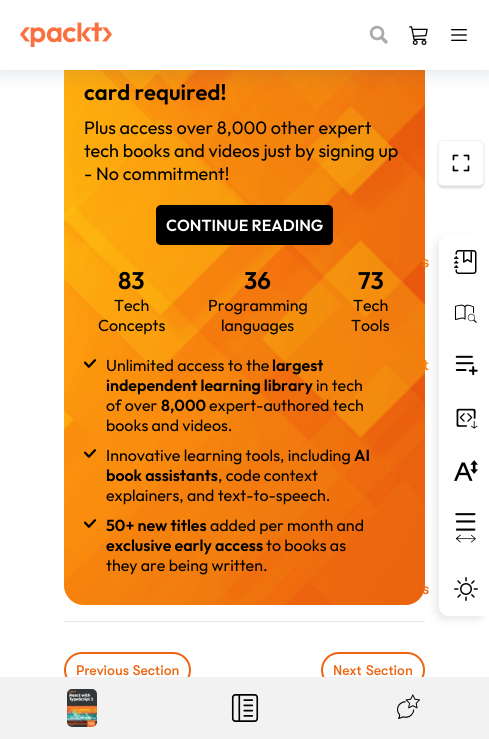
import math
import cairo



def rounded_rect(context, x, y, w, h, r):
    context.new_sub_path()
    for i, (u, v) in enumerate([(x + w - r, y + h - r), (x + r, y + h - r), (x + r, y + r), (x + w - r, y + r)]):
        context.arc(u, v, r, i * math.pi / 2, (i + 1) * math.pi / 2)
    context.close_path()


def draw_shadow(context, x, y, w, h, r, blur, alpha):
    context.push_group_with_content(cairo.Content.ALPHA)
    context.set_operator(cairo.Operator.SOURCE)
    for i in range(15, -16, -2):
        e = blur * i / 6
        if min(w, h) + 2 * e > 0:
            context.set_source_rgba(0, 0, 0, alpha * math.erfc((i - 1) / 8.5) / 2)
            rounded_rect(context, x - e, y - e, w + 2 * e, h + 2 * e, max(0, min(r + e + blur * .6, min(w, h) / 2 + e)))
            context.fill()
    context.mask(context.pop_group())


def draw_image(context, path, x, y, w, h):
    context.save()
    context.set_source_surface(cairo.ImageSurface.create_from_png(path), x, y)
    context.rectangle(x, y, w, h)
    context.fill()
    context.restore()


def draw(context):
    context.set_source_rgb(1, 1, 1)
    context.paint()
    gradient = cairo.LinearGradient(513, 453, -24, 144)
    gradient.add_color_stop_rgba(0.3, 241 / 255, 149 / 255, 57 / 255, 1)
    gradient.add_color_stop_rgba(1, 1, 219 / 255, 61 / 255, 1)
    context.set_source(gradient)
    rounded_rect(context, 64, -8, 361, 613, 20)
    context.fill()
    draw_image(context, "images/5.png", 64, 70, 361, 535)
    context.set_source_rgb(63 / 255, 79 / 255, 110 / 255)
    draw_shadow(context, 0, 3, 489, 70, 0, 10, 0.15)
    context.set_source_rgb(1, 1, 1)
    context.rectangle(0, 0, 489, 70)
    context.fill()
    draw_image(context, "images/1.png", 20, 22, 92, 25)
    draw_image(context, "images/2.png", 369, 25, 20, 19)
    draw_image(context, "images/3.png", 409, 26, 19, 19)
    draw_image(context, "images/4.png", 451, 29, 16, 12)
    context.set_source_rgb(228 / 255, 231 / 255, 237 / 255)
    context.rectangle(64, 621, 361, 1)
    context.fill()
    context.set_source_rgb(0, 0, 0)
    rounded_rect(context, 156, 205, 177, 40, 5)
    context.fill()
    draw_image(context, "images/6.png", 84, 359, 12, 9)
    draw_image(context, "images/7.png", 84, 449, 12, 9)
    draw_image(context, "images/8.png", 84, 519, 12, 9)
    rounded_rect(context, 65, 653, 125, 34, 17)
    context.set_source_rgb(236 / 255, 102 / 255, 17 / 255)
    context.stroke()
    rounded_rect(context, 322, 653, 102, 34, 17)
    context.stroke()
    context.set_source_rgb(0, 0, 0)
    draw_shadow(context, 438, 142, 46, 46, 5, 1, 0.15)
    context.set_source_rgb(1, 1, 1)
    rounded_rect(context, 438.5, 140.5, 45, 45, 4.5)
    context.fill_preserve()
    context.set_source_rgb(242 / 255, 242 / 255, 242 / 255)
    context.set_line_width(1)
    context.stroke()
    draw_image(context, "images/9.png", 452, 154, 18, 18)
    context.set_source_rgb(32 / 255, 32 / 255, 32 / 255)
    draw_shadow(context, 435, 239, 50, 381, 10, 4, 0.1)
    context.set_source_rgb(1, 1, 1)
    context.new_path()
    context.move_to(449, 235)
    context.line_to(489, 235)
    context.line_to(489, 616)
    context.line_to(449, 616)
    context.curve_to(443.5, 616, 439, 611.5, 439, 606)
    context.line_to(439, 245)
    context.curve_to(439, 239.5, 443.5, 235, 449, 235)
    context.close_path()
    context.fill()
    draw_image(context, "images/10.png", 454, 250, 23, 24)
    draw_image(context, "images/11.png", 454, 304, 23, 19)
    draw_image(context, "images/12.png", 455, 355, 23, 21)
    draw_image(context, "images/13.png", 456, 408, 22, 21)
    draw_image(context, "images/14.png", 454, 460, 24, 21)
    draw_image(context, "images/15.png", 455, 513, 21, 30)
    draw_image(context, "images/16.png", 454, 577, 24, 24)
    context.set_source_rgb(242 / 255, 242 / 255, 242 / 255)
    context.rectangle(0, 677, 489, 62)
    context.fill()
    draw_image(context, "images/17.png", 67, 689, 30, 38)
    draw_image(context, "images/18.png", 231, 694, 28, 28)
    draw_image(context, "images/19.png", 397, 694, 23, 25)
    context.select_font_face("Outfit SemiBold")
    context.set_font_size(22)
    context.set_source_rgb(0, 0, 0)
    context.move_to(84, 100)
    context.show_text("card required!")
    context.select_font_face("Outfit")
    context.set_font_size(18)
    context.move_to(84, 134)
    context.show_text("Plus access over 8,000 other expert")
    context.move_to(84, 157)
    context.show_text("tech books and videos just by signing up")
    context.move_to(84, 180)
    context.show_text("- No commitment!")
    context.select_font_face("Outfit SemiBold")
    context.set_font_size(16)
    context.set_source_rgb(1, 1, 1)
    context.move_to(166, 231)
    context.show_text("CONTINUE READING")
    context.set_font_size(24)
    context.set_source_rgb(0, 0, 0)
    context.move_to(118, 289)
    context.show_text("83")
    context.select_font_face("Outfit")
    context.set_font_size(16)
    context.move_to(114, 311)
    context.show_text("Tech")
    context.move_to(98, 331)
    context.show_text("Concepts")
    context.select_font_face("Outfit SemiBold")
    context.set_font_size(24)
    context.move_to(244, 289)
    context.show_text("36")
    context.select_font_face("Outfit")
    context.set_font_size(16)
    context.move_to(208, 311)
    context.show_text("Programming")
    context.move_to(221, 331)
    context.show_text("languages")
    context.select_font_face("Outfit SemiBold")
    context.set_font_size(24)
    context.move_to(358, 289)
    context.show_text("73")
    context.select_font_face("Outfit")
    context.set_font_size(16)
    context.move_to(353, 311)
    context.show_text("Tech")
    context.move_to(351, 331)
    context.show_text("Tools")
    context.move_to(106, 371)
    context.show_text("Unlimited access to the")
    context.select_font_face("Outfit SemiBold")
    context.move_to(272, 371)
    context.show_text("largest")
    context.move_to(106, 391)
    context.show_text("independent learning library")
    context.select_font_face("Outfit")
    context.move_to(316, 391)
    context.show_text("in tech")
    context.move_to(106, 411)
    context.show_text("of over")
    context.select_font_face("Outfit SemiBold")
    context.move_to(161, 411)
    context.show_text("8,000")
    context.select_font_face("Outfit")
    context.move_to(209, 411)
    context.show_text("expert-authored tech")
    context.move_to(106, 431)
    context.show_text("books and videos.")
    context.move_to(106, 461)
    context.show_text("Innovative learning tools, including")
    context.select_font_face("Outfit SemiBold")
    context.move_to(354, 461)
    context.show_text("AI")
    context.move_to(106, 481)
    context.show_text("book assistants")
    context.select_font_face("Outfit")
    context.move_to(218, 481)
    context.show_text(", code context")
    context.move_to(106, 501)
    context.show_text("explainers, and text-to-speech.")
    context.select_font_face("Outfit SemiBold")
    context.move_to(106, 531)
    context.show_text("50+ new titles")
    context.select_font_face("Outfit")
    context.move_to(210, 531)
    context.show_text("added per month and")
    context.select_font_face("Outfit SemiBold")
    context.move_to(106, 551)
    context.show_text("exclusive early access")
    context.select_font_face("Outfit")
    context.move_to(266, 551)
    context.show_text("to books as")
    context.move_to(106, 571)
    context.show_text("they are being written.")
    context.select_font_face("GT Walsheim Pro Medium")
    context.set_font_size(14)
    context.set_source_rgb(236 / 255, 102 / 255, 17 / 255)
    context.move_to(76, 675)
    context.show_text("Previous Section")
    context.move_to(333, 675)
    context.show_text("Next")
    context.move_to(366, 675)
    context.show_text("Section")
    context.set_font_size(16)
    context.set_source_rgb(241 / 255, 125 / 255, 21 / 255)
    context.move_to(422, 267)
    context.show_text("s")
    context.set_source_rgb(242 / 255, 136 / 255, 24 / 255)
    context.move_to(423, 370)
    context.show_text("t")
    context.set_source_rgb(237 / 255, 108 / 255, 21 / 255)
    context.move_to(422, 594)
    context.show_text("s")


surface = cairo.ImageSurface(cairo.Format.RGB24, 489, 739)
context = cairo.Context(surface)
options = cairo.FontOptions()
options.set_hint_metrics(cairo.HintMetrics.OFF)
options.set_hint_style(cairo.HintStyle.NONE)
context.set_font_options(options)
context.set_miter_limit(4)
draw(context)
surface.write_to_png("out.png")
